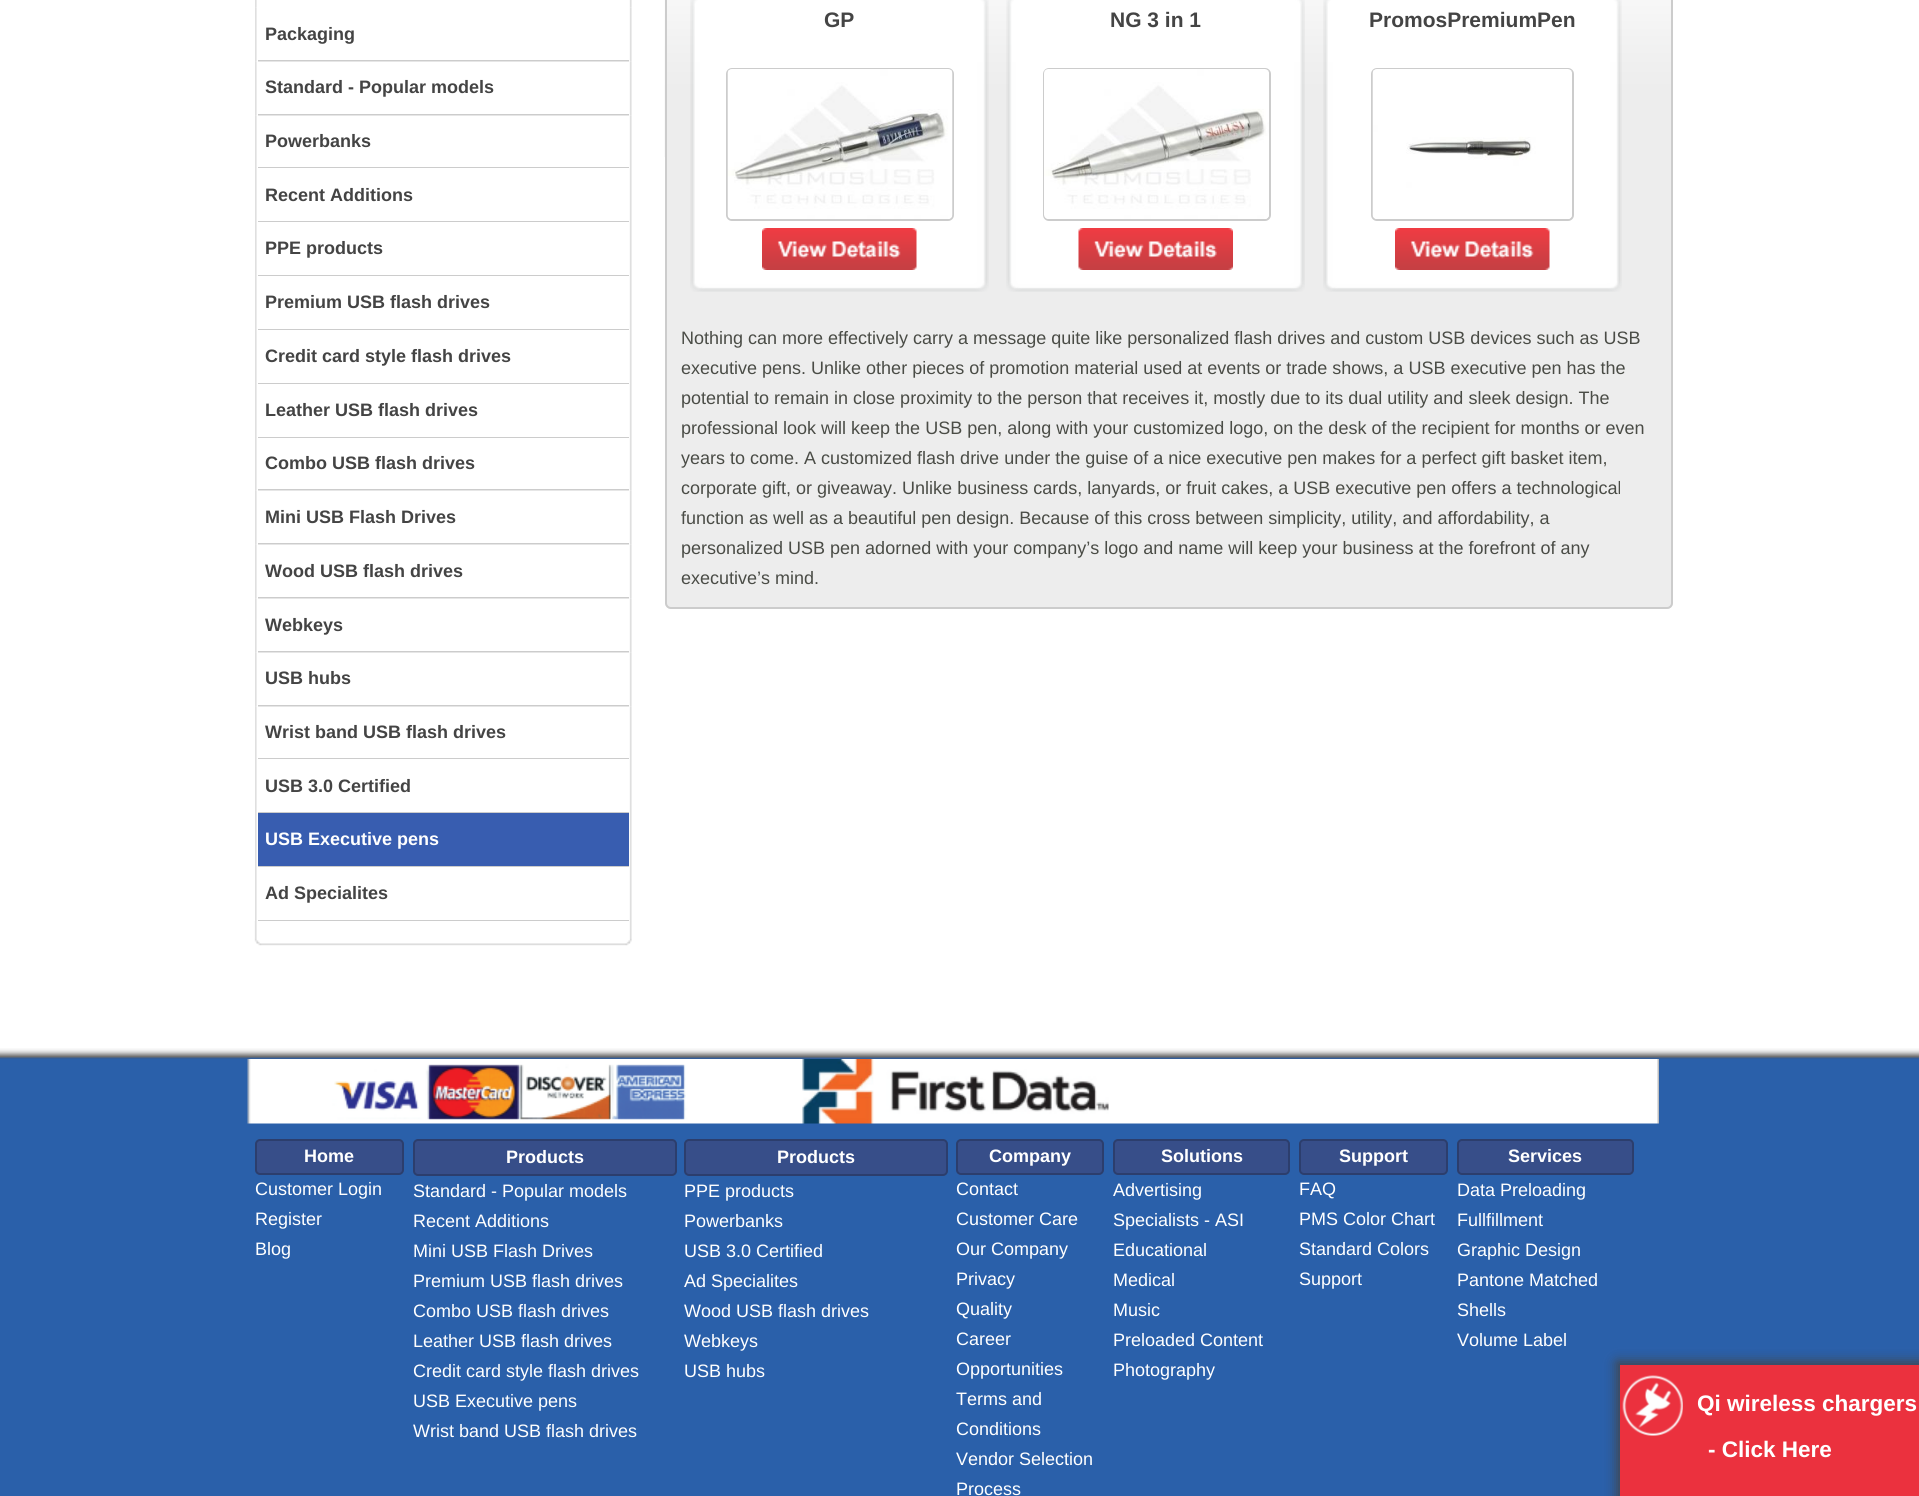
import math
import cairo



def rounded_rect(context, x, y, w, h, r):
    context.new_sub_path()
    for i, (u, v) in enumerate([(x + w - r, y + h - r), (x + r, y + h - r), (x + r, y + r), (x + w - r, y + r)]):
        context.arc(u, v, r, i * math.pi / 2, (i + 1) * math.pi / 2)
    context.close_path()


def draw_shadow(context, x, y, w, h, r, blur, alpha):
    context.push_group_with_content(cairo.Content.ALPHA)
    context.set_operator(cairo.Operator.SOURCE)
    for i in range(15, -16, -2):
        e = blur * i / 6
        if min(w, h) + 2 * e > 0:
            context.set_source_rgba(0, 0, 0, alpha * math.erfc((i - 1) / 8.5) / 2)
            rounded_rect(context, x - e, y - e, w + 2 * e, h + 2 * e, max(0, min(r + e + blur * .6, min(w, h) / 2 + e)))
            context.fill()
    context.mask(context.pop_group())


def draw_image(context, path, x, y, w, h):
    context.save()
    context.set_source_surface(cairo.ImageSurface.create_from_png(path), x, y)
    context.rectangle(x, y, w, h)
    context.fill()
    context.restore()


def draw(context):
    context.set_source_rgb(1, 1, 1)
    context.paint()
    draw_image(context, "images/1.png", 255, 0, 377, 8)
    draw_image(context, "images/2.png", 255, 7, 377, 55)
    context.set_source_rgb(204 / 255, 204 / 255, 204 / 255)
    context.rectangle(258, 60, 371, 2)
    context.fill()
    draw_image(context, "images/3.png", 255, 61, 377, 55)
    context.rectangle(258, 114, 371, 2)
    context.fill()
    draw_image(context, "images/4.png", 255, 115, 377, 53)
    context.rectangle(258, 167, 371, 1)
    context.fill()
    draw_image(context, "images/5.png", 255, 168, 377, 54)
    context.rectangle(258, 221, 371, 1)
    context.fill()
    draw_image(context, "images/5.png", 255, 222, 377, 54)
    context.rectangle(258, 275, 371, 1)
    context.fill()
    draw_image(context, "images/5.png", 255, 276, 377, 54)
    context.rectangle(258, 329, 371, 1)
    context.fill()
    draw_image(context, "images/5.png", 255, 330, 377, 54)
    context.rectangle(258, 383, 371, 1)
    context.fill()
    draw_image(context, "images/5.png", 255, 384, 377, 54)
    context.rectangle(258, 437, 371, 1)
    context.fill()
    draw_image(context, "images/6.png", 255, 438, 377, 53)
    context.rectangle(258, 489, 371, 2)
    context.fill()
    draw_image(context, "images/3.png", 255, 490, 377, 55)
    context.rectangle(258, 543, 371, 2)
    context.fill()
    draw_image(context, "images/3.png", 255, 544, 377, 55)
    context.rectangle(258, 597, 371, 2)
    context.fill()
    draw_image(context, "images/3.png", 255, 598, 377, 55)
    context.rectangle(258, 651, 371, 2)
    context.fill()
    draw_image(context, "images/3.png", 255, 652, 377, 55)
    context.rectangle(258, 705, 371, 2)
    context.fill()
    draw_image(context, "images/4.png", 255, 706, 377, 53)
    context.rectangle(258, 758, 371, 1)
    context.fill()
    draw_image(context, "images/5.png", 255, 759, 377, 54)
    context.rectangle(258, 812, 371, 1)
    context.fill()
    draw_image(context, "images/5.png", 255, 813, 377, 54)
    context.set_source_rgb(56 / 255, 93 / 255, 176 / 255)
    context.rectangle(258, 813, 371, 53)
    context.fill()
    context.set_source_rgb(204 / 255, 204 / 255, 204 / 255)
    context.rectangle(258, 866, 371, 1)
    context.fill()
    draw_image(context, "images/5.png", 255, 867, 377, 54)
    context.rectangle(258, 920, 371, 1)
    context.fill()
    draw_image(context, "images/7.png", 254, 921, 378, 25)
    context.set_source_rgb(237 / 255, 237 / 255, 237 / 255)
    rounded_rect(context, 665, -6, 1008, 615, 6)
    context.fill()
    draw_image(context, "images/8.png", 664, 0, 1007, 157)
    rounded_rect(context, 666, -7, 1006, 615, 5)
    context.set_source_rgb(204 / 255, 204 / 255, 204 / 255)
    context.stroke()
    draw_image(context, "images/9.png", 690, 0, 299, 292)
    rounded_rect(context, 727, 69, 226, 151, 5)
    context.stroke()
    draw_image(context, "images/10.png", 727, 69, 226, 150)
    draw_image(context, "images/11.png", 762, 228, 155, 42)
    draw_image(context, "images/12.png", 1006, 0, 299, 292)
    rounded_rect(context, 1044, 69, 226, 151, 5)
    context.stroke()
    draw_image(context, "images/13.png", 1044, 69, 225, 150)
    draw_image(context, "images/14.png", 1078, 228, 155, 42)
    draw_image(context, "images/15.png", 1323, 0, 299, 292)
    rounded_rect(context, 1372, 69, 201, 151, 5)
    context.stroke()
    draw_image(context, "images/16.png", 1372, 69, 200, 150)
    draw_image(context, "images/11.png", 1395, 228, 155, 42)
    draw_image(context, "images/17.png", 0, 1048, 1919, 448)
    draw_image(context, "images/18.png", 247, 1059, 1412, 65)
    context.set_source_rgb(55 / 255, 78 / 255, 137 / 255)
    rounded_rect(context, 256, 1140, 147, 34, 4)
    context.fill_preserve()
    context.set_source_rgb(44 / 255, 62 / 255, 109 / 255)
    context.stroke()
    context.set_source_rgb(55 / 255, 78 / 255, 137 / 255)
    rounded_rect(context, 414, 1140, 262, 35, 4)
    context.fill_preserve()
    context.set_source_rgb(44 / 255, 62 / 255, 109 / 255)
    context.stroke()
    context.set_source_rgb(55 / 255, 78 / 255, 137 / 255)
    rounded_rect(context, 685, 1140, 262, 35, 4)
    context.fill_preserve()
    context.set_source_rgb(44 / 255, 62 / 255, 109 / 255)
    context.stroke()
    context.set_source_rgb(55 / 255, 78 / 255, 137 / 255)
    rounded_rect(context, 957, 1140, 146, 34, 4)
    context.fill_preserve()
    context.set_source_rgb(44 / 255, 62 / 255, 109 / 255)
    context.stroke()
    context.set_source_rgb(55 / 255, 78 / 255, 137 / 255)
    rounded_rect(context, 1114, 1140, 175, 34, 4)
    context.fill_preserve()
    context.set_source_rgb(44 / 255, 62 / 255, 109 / 255)
    context.stroke()
    context.set_source_rgb(55 / 255, 78 / 255, 137 / 255)
    rounded_rect(context, 1300, 1140, 147, 34, 4)
    context.fill_preserve()
    context.set_source_rgb(44 / 255, 62 / 255, 109 / 255)
    context.stroke()
    context.set_source_rgb(55 / 255, 78 / 255, 137 / 255)
    rounded_rect(context, 1458, 1140, 175, 34, 4)
    context.fill_preserve()
    context.set_source_rgb(44 / 255, 62 / 255, 109 / 255)
    context.stroke()
    context.set_source_rgb(68 / 255, 68 / 255, 68 / 255)
    draw_shadow(context, 1617, 1362, 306, 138, 0, 6, 1)
    context.set_source_rgb(235 / 255, 49 / 255, 62 / 255)
    context.rectangle(1620, 1365, 299, 131)
    context.fill()
    draw_image(context, "images/19.png", 1622, 1375, 61, 61)
    context.select_font_face("Liberation Sans", cairo.FontSlant.NORMAL, cairo.FontWeight.BOLD)
    context.set_font_size(18)
    context.set_source_rgb(68 / 255, 68 / 255, 68 / 255)
    context.move_to(265, 40)
    context.show_text("Packaging")
    context.move_to(265, 93)
    context.show_text("Standard - Popular models")
    context.move_to(265, 147)
    context.show_text("Powerbanks")
    context.move_to(265, 201)
    context.show_text("Recent Additions")
    context.move_to(265, 254)
    context.show_text("PPE products")
    context.move_to(265, 308)
    context.show_text("Premium USB flash drives")
    context.move_to(265, 362)
    context.show_text("Credit card style flash drives")
    context.move_to(265, 416)
    context.show_text("Leather USB flash drives")
    context.move_to(265, 469)
    context.show_text("Combo USB flash drives")
    context.move_to(265, 523)
    context.show_text("Mini USB Flash Drives")
    context.move_to(265, 577)
    context.show_text("Wood USB flash drives")
    context.move_to(265, 631)
    context.show_text("Webkeys")
    context.move_to(265, 684)
    context.show_text("USB hubs")
    context.move_to(265, 738)
    context.show_text("Wrist band USB flash drives")
    context.move_to(265, 792)
    context.show_text("USB 3.0 Certified")
    context.set_source_rgb(1, 1, 1)
    context.move_to(265, 845)
    context.show_text("USB Executive pens")
    context.set_source_rgb(68 / 255, 68 / 255, 68 / 255)
    context.move_to(265, 899)
    context.show_text("Ad Specialites")
    context.set_font_size(21)
    context.move_to(824, 27)
    context.show_text("GP")
    context.move_to(1110, 27)
    context.show_text("NG 3 in 1")
    context.move_to(1369, 27)
    context.show_text("PromosPremiumPen")
    context.select_font_face("Liberation Sans")
    context.set_font_size(18)
    context.set_source_rgb(74 / 255, 76 / 255, 70 / 255)
    context.move_to(681, 344)
    context.show_text("Nothing can more effectively carry a message quite like personalized flash drives and custom USB devices such as USB")
    context.move_to(681, 374)
    context.show_text("executive pens. Unlike other pieces of promotion material used at events or trade shows, a USB executive pen has the")
    context.move_to(681, 404)
    context.show_text("potential to remain in close proximity to the person that receives it, mostly due to its dual utility and sleek design. The")
    context.move_to(681, 434)
    context.show_text("professional look will keep the USB pen, along with your customized logo, on the desk of the recipient for months or even")
    context.move_to(681, 464)
    context.show_text("years to come. A customized flash drive under the guise of a nice executive pen makes for a perfect gift basket item,")
    context.move_to(681, 494)
    context.show_text("corporate gift, or giveaway. Unlike business cards, lanyards, or fruit cakes, a USB executive pen offers a technological")
    context.move_to(681, 524)
    context.show_text("function as well as a beautiful pen design. Because of this cross between simplicity, utility, and affordability, a")
    context.move_to(681, 554)
    context.show_text("personalized USB pen adorned with your company’s logo and name will keep your business at the forefront of any")
    context.move_to(681, 584)
    context.show_text("executive’s mind.")
    context.select_font_face("Liberation Sans", cairo.FontSlant.NORMAL, cairo.FontWeight.BOLD)
    context.set_source_rgb(1, 1, 1)
    context.move_to(304, 1162)
    context.show_text("Home")
    context.select_font_face("Liberation Sans")
    context.move_to(255, 1195)
    context.show_text("Customer Login")
    context.move_to(255, 1225)
    context.show_text("Register")
    context.move_to(255, 1255)
    context.show_text("Blog")
    context.select_font_face("Liberation Sans", cairo.FontSlant.NORMAL, cairo.FontWeight.BOLD)
    context.move_to(506, 1163)
    context.show_text("Products")
    context.select_font_face("Liberation Sans")
    context.move_to(413, 1197)
    context.show_text("Standard - Popular models")
    context.move_to(413, 1227)
    context.show_text("Recent Additions")
    context.move_to(413, 1257)
    context.show_text("Mini USB Flash Drives")
    context.move_to(413, 1287)
    context.show_text("Premium USB flash drives")
    context.move_to(413, 1317)
    context.show_text("Combo USB flash drives")
    context.move_to(413, 1347)
    context.show_text("Leather USB flash drives")
    context.move_to(413, 1377)
    context.show_text("Credit card style flash drives")
    context.move_to(413, 1407)
    context.show_text("USB Executive pens")
    context.move_to(413, 1437)
    context.show_text("Wrist band USB flash drives")
    context.select_font_face("Liberation Sans", cairo.FontSlant.NORMAL, cairo.FontWeight.BOLD)
    context.move_to(777, 1163)
    context.show_text("Products")
    context.select_font_face("Liberation Sans")
    context.move_to(684, 1197)
    context.show_text("PPE products")
    context.move_to(684, 1227)
    context.show_text("Powerbanks")
    context.move_to(684, 1257)
    context.show_text("USB 3.0 Certified")
    context.move_to(684, 1287)
    context.show_text("Ad Specialites")
    context.move_to(684, 1317)
    context.show_text("Wood USB flash drives")
    context.move_to(684, 1347)
    context.show_text("Webkeys")
    context.move_to(684, 1377)
    context.show_text("USB hubs")
    context.select_font_face("Liberation Sans", cairo.FontSlant.NORMAL, cairo.FontWeight.BOLD)
    context.move_to(989, 1162)
    context.show_text("Company")
    context.select_font_face("Liberation Sans")
    context.move_to(956, 1195)
    context.show_text("Contact")
    context.move_to(956, 1225)
    context.show_text("Customer Care")
    context.move_to(956, 1255)
    context.show_text("Our Company")
    context.move_to(956, 1285)
    context.show_text("Privacy")
    context.move_to(956, 1315)
    context.show_text("Quality")
    context.move_to(956, 1345)
    context.show_text("Career")
    context.move_to(956, 1375)
    context.show_text("Opportunities")
    context.move_to(956, 1405)
    context.show_text("Terms and")
    context.move_to(956, 1435)
    context.show_text("Conditions")
    context.move_to(956, 1465)
    context.show_text("Vendor Selection")
    context.move_to(956, 1495)
    context.show_text("Process")
    context.select_font_face("Liberation Sans", cairo.FontSlant.NORMAL, cairo.FontWeight.BOLD)
    context.move_to(1161, 1162)
    context.show_text("Solutions")
    context.select_font_face("Liberation Sans")
    context.move_to(1113, 1196)
    context.show_text("Advertising")
    context.move_to(1113, 1226)
    context.show_text("Specialists - ASI")
    context.move_to(1113, 1256)
    context.show_text("Educational")
    context.move_to(1113, 1286)
    context.show_text("Medical")
    context.move_to(1113, 1316)
    context.show_text("Music")
    context.move_to(1113, 1346)
    context.show_text("Preloaded Content")
    context.move_to(1113, 1376)
    context.show_text("Photography")
    context.select_font_face("Liberation Sans", cairo.FontSlant.NORMAL, cairo.FontWeight.BOLD)
    context.move_to(1339, 1162)
    context.show_text("Support")
    context.select_font_face("Liberation Sans")
    context.move_to(1299, 1195)
    context.show_text("FAQ")
    context.move_to(1299, 1225)
    context.show_text("PMS Color Chart")
    context.move_to(1299, 1255)
    context.show_text("Standard Colors")
    context.move_to(1299, 1285)
    context.show_text("Support")
    context.select_font_face("Liberation Sans", cairo.FontSlant.NORMAL, cairo.FontWeight.BOLD)
    context.move_to(1508, 1162)
    context.show_text("Services")
    context.select_font_face("Liberation Sans")
    context.move_to(1457, 1196)
    context.show_text("Data Preloading")
    context.move_to(1457, 1226)
    context.show_text("Fullfillment")
    context.move_to(1457, 1256)
    context.show_text("Graphic Design")
    context.move_to(1457, 1286)
    context.show_text("Pantone Matched")
    context.move_to(1457, 1316)
    context.show_text("Shells")
    context.move_to(1457, 1346)
    context.show_text("Volume Label")
    context.select_font_face("Liberation Sans", cairo.FontSlant.NORMAL, cairo.FontWeight.BOLD)
    context.set_font_size(22.5)
    context.move_to(1697, 1411)
    context.show_text("Qi wireless chargers")
    context.move_to(1708, 1457)
    context.show_text("- Click Here")


surface = cairo.ImageSurface(cairo.Format.RGB24, 1919, 1496)
context = cairo.Context(surface)
options = cairo.FontOptions()
options.set_hint_metrics(cairo.HintMetrics.OFF)
options.set_hint_style(cairo.HintStyle.NONE)
context.set_font_options(options)
context.set_miter_limit(4)
draw(context)
surface.write_to_png("out.png")
